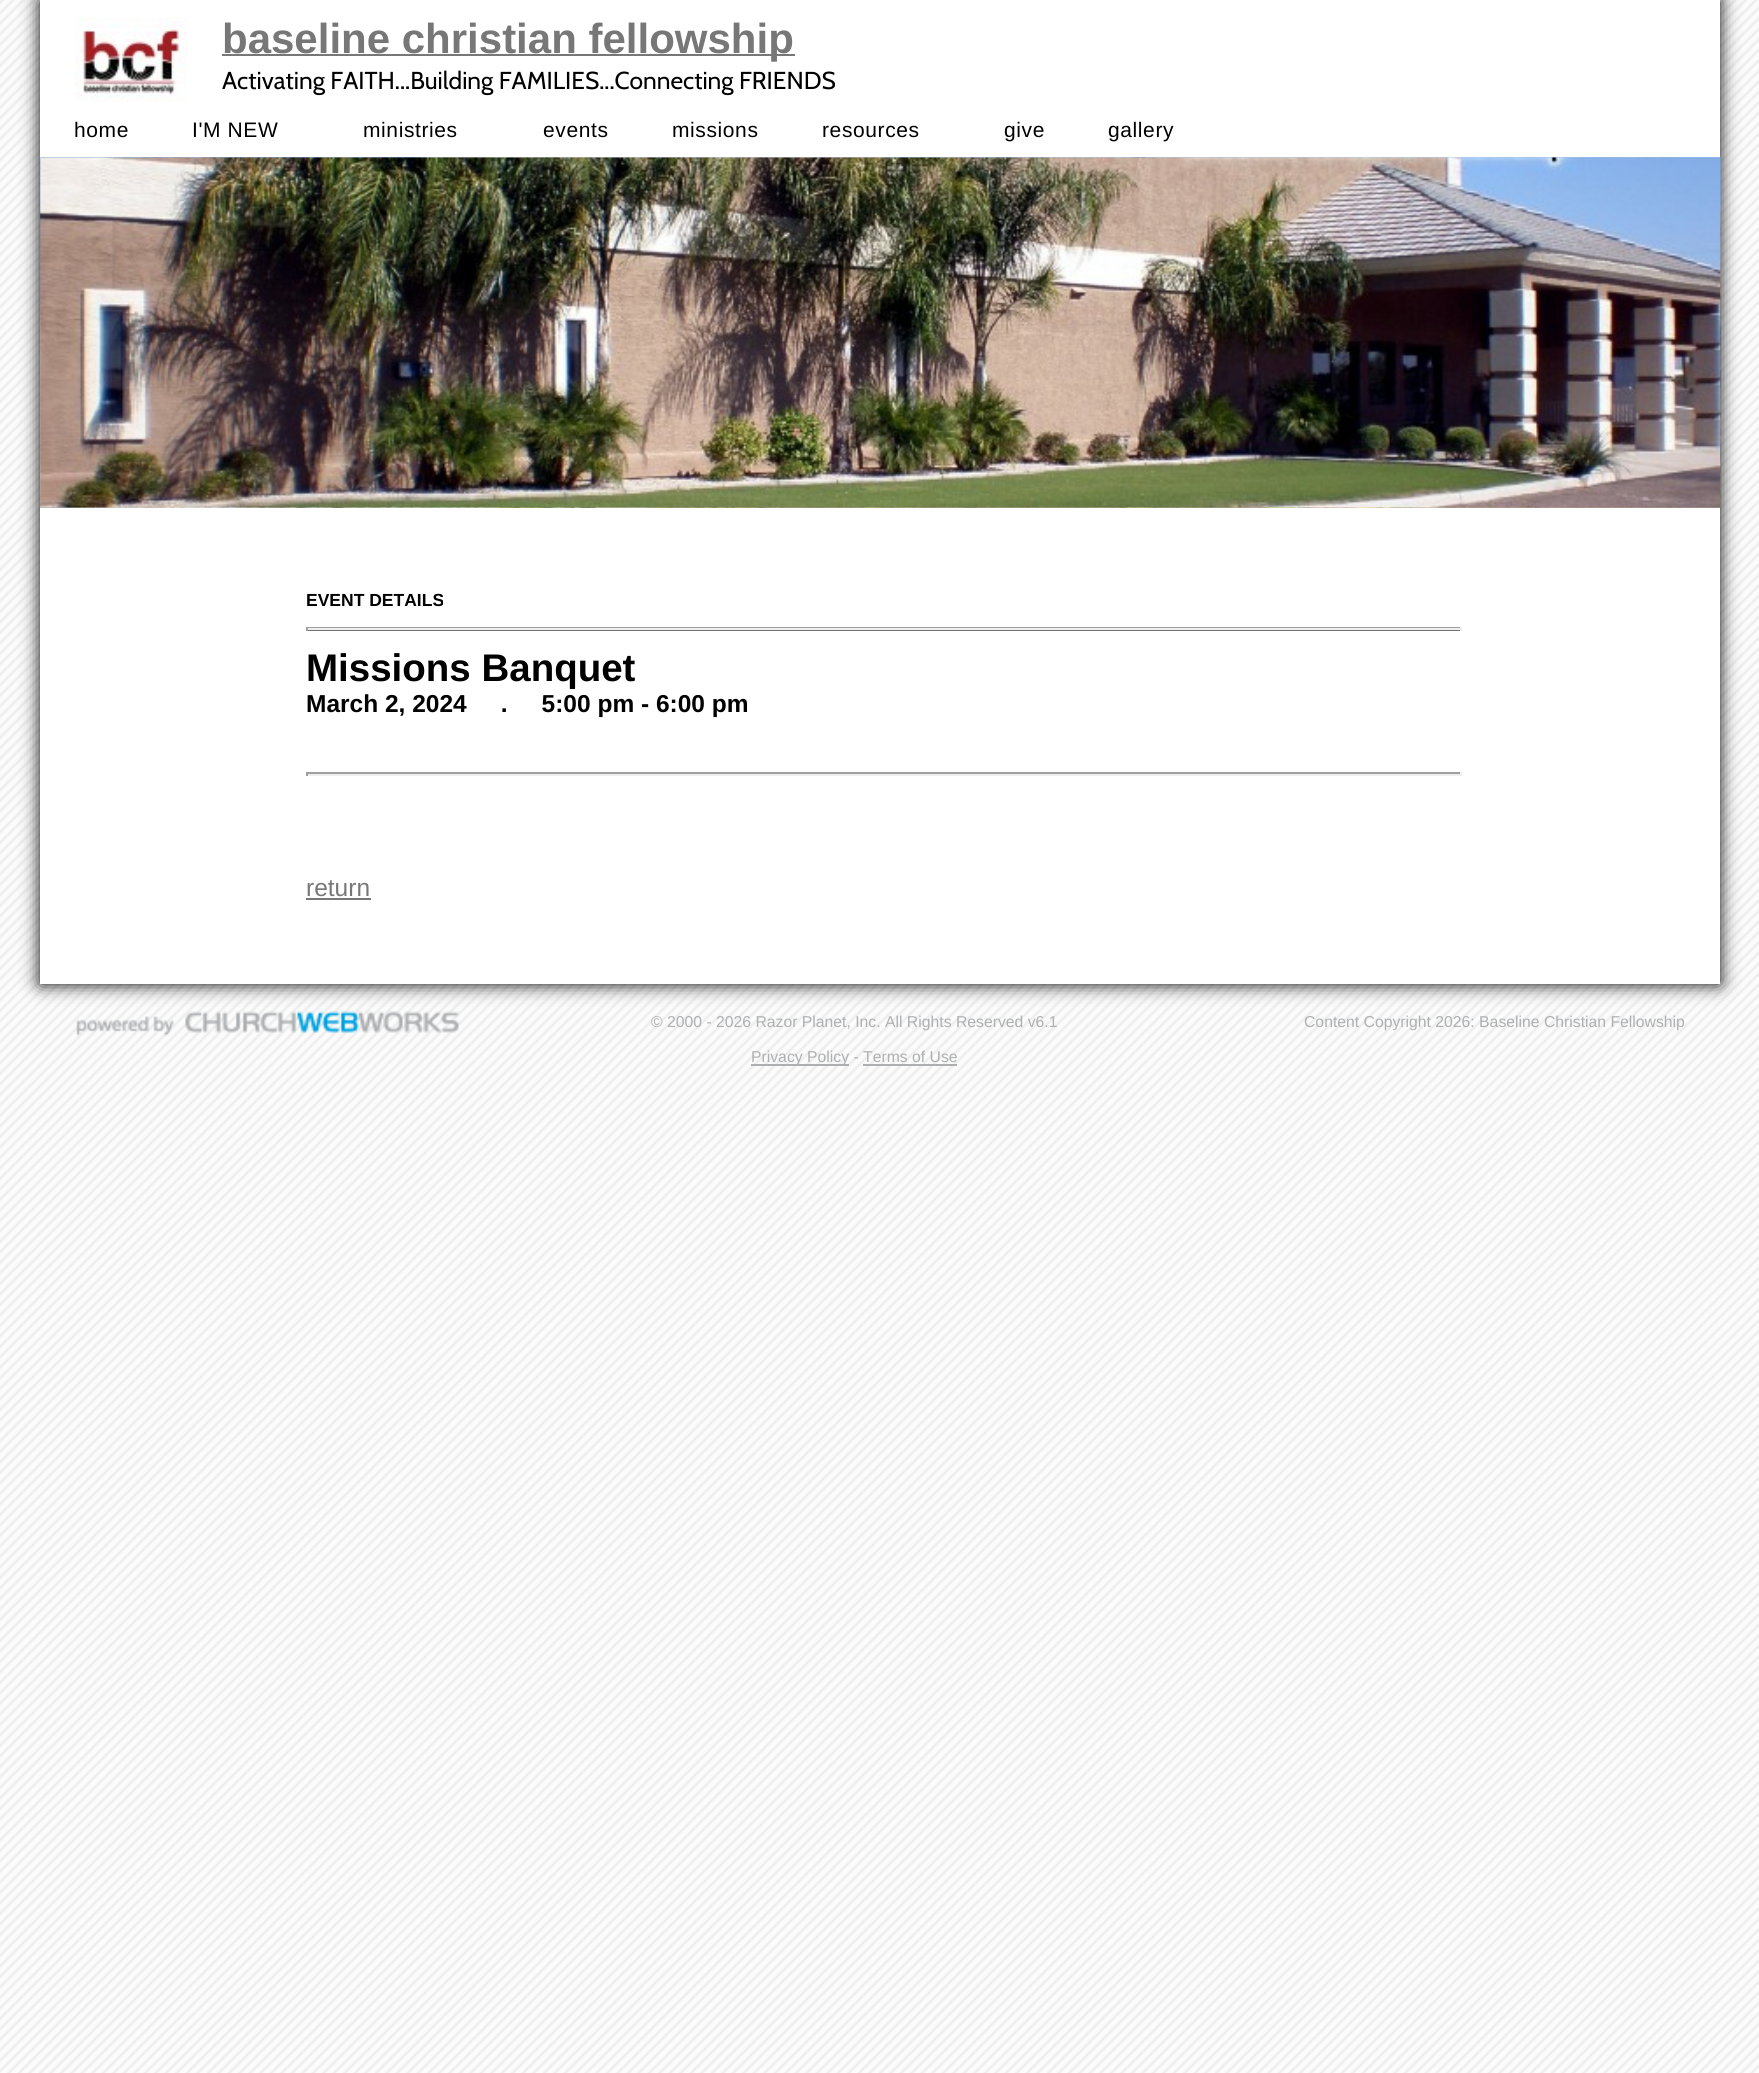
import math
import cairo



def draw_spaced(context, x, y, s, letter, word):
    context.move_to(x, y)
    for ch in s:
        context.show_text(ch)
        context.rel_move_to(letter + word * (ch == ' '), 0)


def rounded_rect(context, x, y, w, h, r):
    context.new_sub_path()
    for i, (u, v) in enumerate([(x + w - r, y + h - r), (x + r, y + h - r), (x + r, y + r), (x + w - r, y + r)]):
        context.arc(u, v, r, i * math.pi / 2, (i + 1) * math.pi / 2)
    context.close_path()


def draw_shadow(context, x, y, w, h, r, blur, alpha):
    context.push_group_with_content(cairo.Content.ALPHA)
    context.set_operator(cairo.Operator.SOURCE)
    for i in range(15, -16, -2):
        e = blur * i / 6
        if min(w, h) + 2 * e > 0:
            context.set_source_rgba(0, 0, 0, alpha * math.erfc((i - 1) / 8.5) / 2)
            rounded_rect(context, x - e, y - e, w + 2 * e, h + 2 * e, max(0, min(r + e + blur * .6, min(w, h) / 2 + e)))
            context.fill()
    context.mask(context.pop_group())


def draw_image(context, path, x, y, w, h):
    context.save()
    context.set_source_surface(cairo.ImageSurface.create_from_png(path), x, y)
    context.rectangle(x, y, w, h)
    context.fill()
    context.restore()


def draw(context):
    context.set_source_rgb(1, 1, 1)
    context.paint()
    draw_image(context, "images/1.png", 0, 0, 1759, 2073)
    context.set_source_rgb(0, 0, 0)
    draw_shadow(context, 40, 0, 1680, 984, 0, 9, 1)
    context.set_source_rgb(1, 1, 1)
    context.rectangle(40, 0, 1680, 984)
    context.fill()
    draw_image(context, "images/2.png", 75, 17, 112, 85)
    context.set_source_rgb(119 / 255, 119 / 255, 119 / 255)
    context.rectangle(222, 54, 573, 2)
    context.fill()
    draw_image(context, "images/3.png", 40, 157, 1681, 351)
    draw_image(context, "images/4.png", 40, 157, 1681, 351)
    draw_image(context, "images/5.png", 40, 157, 1681, 351)
    context.set_source_rgb(113 / 255, 113 / 255, 113 / 255)
    context.rectangle(306, 630, 1155, 1)
    context.fill()
    context.set_source_rgb(159 / 255, 159 / 255, 159 / 255)
    context.rectangle(306, 627, 1155, 1)
    context.fill()
    context.set_source_rgb(238 / 255, 238 / 255, 238 / 255)
    context.rectangle(1460, 627, 2, 4)
    context.fill()
    context.rectangle(306, 628, 1155, 2)
    context.fill()
    context.set_source_rgb(159 / 255, 159 / 255, 159 / 255)
    context.rectangle(306, 627, 2, 4)
    context.fill()
    context.rectangle(306, 772, 1155, 2)
    context.fill()
    context.set_source_rgb(238 / 255, 238 / 255, 238 / 255)
    context.rectangle(1460, 772, 2, 4)
    context.fill()
    context.rectangle(306, 774, 1155, 2)
    context.fill()
    context.set_source_rgb(159 / 255, 159 / 255, 159 / 255)
    context.rectangle(306, 772, 2, 4)
    context.fill()
    context.set_source_rgb(119 / 255, 119 / 255, 119 / 255)
    context.rectangle(306, 898, 65, 2)
    context.fill()
    draw_image(context, "images/6.png", 76, 1011, 383, 26)
    context.set_source_rgb(173 / 255, 175 / 255, 177 / 255)
    context.rectangle(751, 1064, 98, 2)
    context.fill()
    context.rectangle(863, 1064, 94, 2)
    context.fill()
    context.select_font_face("Liberation Sans", cairo.FontSlant.NORMAL, cairo.FontWeight.BOLD)
    context.set_font_size(42)
    context.set_source_rgb(119 / 255, 119 / 255, 119 / 255)
    context.move_to(222, 53)
    context.show_text("baseline christian fellowship")
    context.select_font_face("Cabin")
    context.set_font_size(24.5)
    context.set_source_rgb(0, 0, 0)
    context.move_to(222, 89)
    context.show_text("Activating FAITH...Building FAMILIES...Connecting FRIENDS")
    context.select_font_face("Liberation Sans")
    context.set_font_size(21)
    draw_spaced(context, 74, 137, "home", 0.6, 0)
    draw_spaced(context, 192, 137, "I'M NEW", 0.6, 0)
    draw_spaced(context, 363, 137, "ministries", 0.6, 0)
    draw_spaced(context, 543, 137, "events", 0.6, 0)
    draw_spaced(context, 672, 137, "missions", 0.6, 0)
    draw_spaced(context, 822, 137, "resources", 0.6, 0)
    draw_spaced(context, 1004, 137, "give", 0.6, 0)
    draw_spaced(context, 1108, 137, "gallery", 0.6, 0)
    context.select_font_face("Liberation Sans", cairo.FontSlant.NORMAL, cairo.FontWeight.BOLD)
    context.set_font_size(17.5)
    context.move_to(306, 606)
    context.show_text("EVENT DETAILS")
    context.set_font_size(38.5)
    context.move_to(306, 681)
    context.show_text("Missions Banquet")
    context.set_font_size(24.5)
    context.move_to(306, 712)
    context.show_text("March 2, 2024     .     5:00 pm - 6:00 pm")
    context.select_font_face("Liberation Sans")
    context.set_source_rgb(119 / 255, 119 / 255, 119 / 255)
    context.move_to(306, 896)
    context.show_text("return")
    context.set_font_size(15.75)
    context.set_source_rgb(173 / 255, 175 / 255, 177 / 255)
    context.move_to(651, 1027)
    context.show_text("© 2000 - 2026 Razor Planet, Inc. All Rights Reserved v6.1")
    context.move_to(751, 1062)
    context.show_text("Privacy Policy - Terms of Use")
    context.move_to(1304, 1027)
    context.show_text("Content Copyright 2026: Baseline Christian Fellowship")


surface = cairo.ImageSurface(cairo.Format.RGB24, 1759, 2073)
context = cairo.Context(surface)
options = cairo.FontOptions()
options.set_hint_metrics(cairo.HintMetrics.OFF)
options.set_hint_style(cairo.HintStyle.NONE)
context.set_font_options(options)
context.set_miter_limit(4)
draw(context)
surface.write_to_png("out.png")
